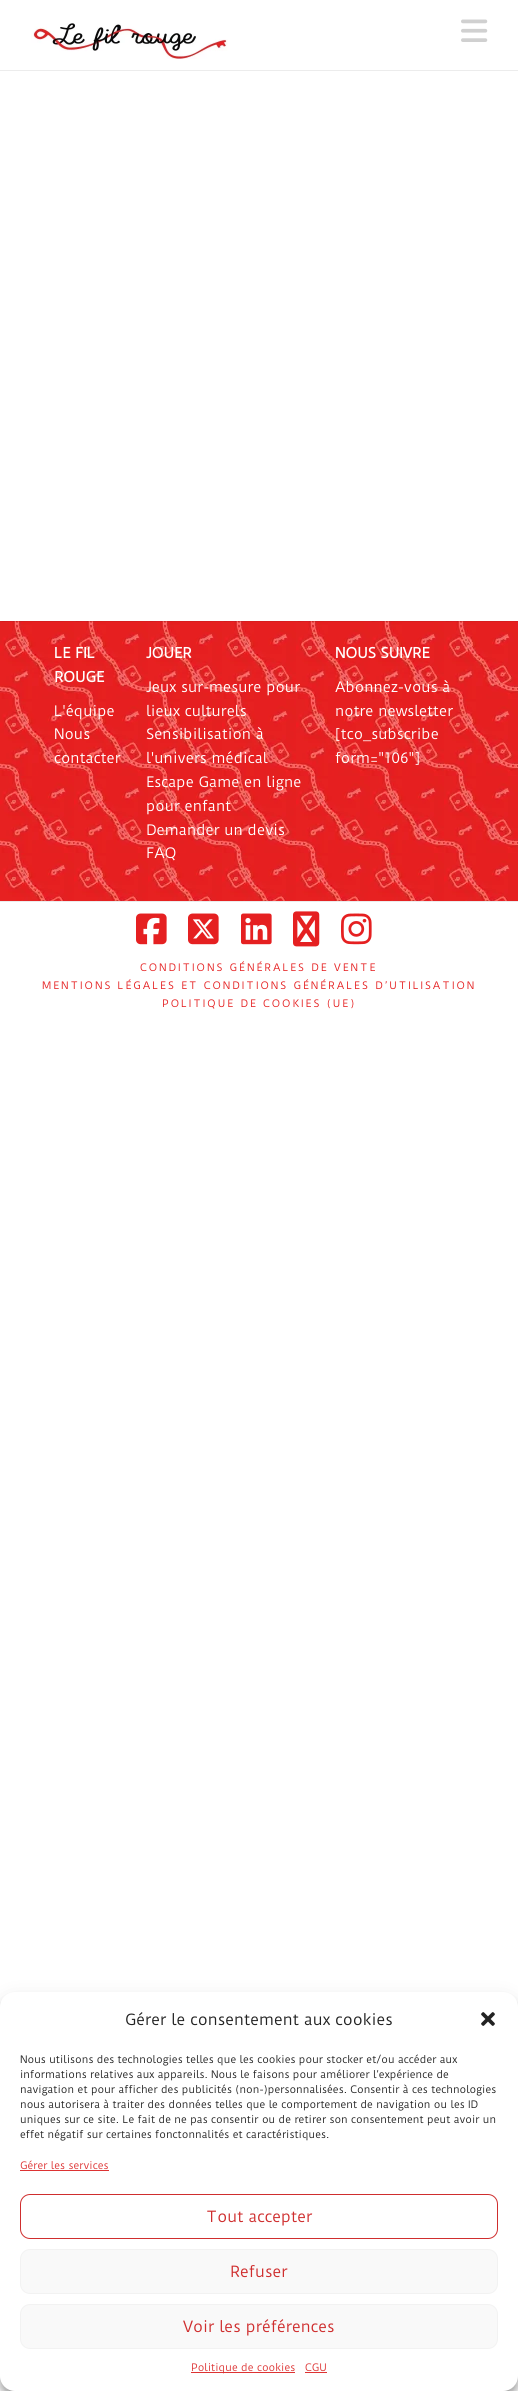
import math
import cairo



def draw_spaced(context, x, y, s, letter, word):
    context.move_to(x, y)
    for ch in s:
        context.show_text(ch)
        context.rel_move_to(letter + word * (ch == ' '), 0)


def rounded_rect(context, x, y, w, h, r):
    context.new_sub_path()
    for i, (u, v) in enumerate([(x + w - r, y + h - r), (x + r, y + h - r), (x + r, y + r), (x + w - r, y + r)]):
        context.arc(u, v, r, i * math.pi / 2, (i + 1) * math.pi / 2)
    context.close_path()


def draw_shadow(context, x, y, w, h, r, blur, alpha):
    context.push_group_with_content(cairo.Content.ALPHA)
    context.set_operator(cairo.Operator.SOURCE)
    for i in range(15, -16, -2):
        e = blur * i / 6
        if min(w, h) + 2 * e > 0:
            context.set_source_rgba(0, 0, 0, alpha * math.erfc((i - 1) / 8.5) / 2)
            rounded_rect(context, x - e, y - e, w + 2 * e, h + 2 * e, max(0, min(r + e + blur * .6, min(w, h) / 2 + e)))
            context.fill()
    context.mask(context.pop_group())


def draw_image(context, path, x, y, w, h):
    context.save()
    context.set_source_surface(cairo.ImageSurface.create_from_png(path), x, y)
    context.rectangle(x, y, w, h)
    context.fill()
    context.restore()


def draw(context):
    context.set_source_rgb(1, 1, 1)
    context.paint()
    context.set_source_rgb(236 / 255, 236 / 255, 236 / 255)
    context.rectangle(0, 70, 518, 1)
    context.fill()
    draw_image(context, "images/1.png", 31, 23, 197, 36)
    draw_image(context, "images/2.png", 461, 19, 27, 23)
    draw_image(context, "images/3.png", 0, 621, 518, 280)
    context.set_source_rgba(0, 0, 0, 0.07)
    context.rectangle(0, 621, 518, 1)
    context.fill()
    context.set_source_rgb(236 / 255, 236 / 255, 236 / 255)
    context.rectangle(0, 901, 518, 1)
    context.fill()
    draw_image(context, "images/4.png", 136, 913, 31, 32)
    draw_image(context, "images/5.png", 188, 913, 31, 32)
    draw_image(context, "images/6.png", 241, 913, 31, 32)
    draw_image(context, "images/7.png", 293, 911, 27, 36)
    draw_image(context, "images/8.png", 341, 913, 31, 32)
    context.set_source_rgb(0, 0, 0)
    draw_shadow(context, 0, 1998, 518, 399, 15, 3, 0.23)
    draw_shadow(context, 0, 2002, 518, 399, 15, 10, 0.19)
    context.set_source_rgb(128 / 255, 128 / 255, 128 / 255)
    draw_shadow(context, 448, 2317, 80, 60, 2, 2.5, 1)
    context.set_source_rgb(1, 1, 1)
    rounded_rect(context, 0, 1992, 518, 399, 15)
    context.fill()
    draw_image(context, "images/9.png", 481, 2012, 14, 14)
    context.set_source_rgb(221 / 255, 51 / 255, 51 / 255)
    context.rectangle(20, 2170, 89, 1)
    context.fill()
    rounded_rect(context, 20.5, 2194.5, 477, 44, 9.5)
    context.set_source_rgb(207 / 255, 46 / 255, 46 / 255)
    context.set_line_width(1)
    context.stroke()
    context.set_source_rgb(249 / 255, 249 / 255, 249 / 255)
    rounded_rect(context, 20.5, 2249.5, 477, 44, 9.5)
    context.fill_preserve()
    context.set_source_rgb(242 / 255, 242 / 255, 242 / 255)
    context.stroke()
    context.set_source_rgb(249 / 255, 249 / 255, 249 / 255)
    rounded_rect(context, 20.5, 2304.5, 477, 44, 9.5)
    context.fill_preserve()
    context.set_source_rgb(242 / 255, 242 / 255, 242 / 255)
    context.stroke()
    context.set_source_rgb(221 / 255, 51 / 255, 51 / 255)
    context.rectangle(191, 2372, 104, 1)
    context.fill()
    context.rectangle(305, 2372, 22, 1)
    context.fill()
    context.select_font_face("Duru Sans", cairo.FontSlant.NORMAL, cairo.FontWeight.BOLD)
    context.set_font_size(14)
    context.set_source_rgb(1, 1, 1)
    context.move_to(54, 658)
    context.show_text("LE FIL")
    context.move_to(54, 682)
    context.show_text("ROUGE")
    context.select_font_face("Duru Sans")
    context.move_to(54, 716)
    context.show_text("L'équipe")
    context.move_to(54, 739)
    context.show_text("Nous")
    context.move_to(54, 763)
    context.show_text("contacter")
    context.select_font_face("Duru Sans", cairo.FontSlant.NORMAL, cairo.FontWeight.BOLD)
    context.move_to(146, 658)
    context.show_text("JOUER")
    context.select_font_face("Duru Sans")
    context.move_to(146, 692)
    context.show_text("Jeux sur-mesure pour")
    context.move_to(146, 716)
    context.show_text("lieux culturels")
    context.move_to(146, 739)
    context.show_text("Sensibilisation à")
    context.move_to(146, 763)
    context.show_text("l'univers médical")
    context.move_to(146, 787)
    context.show_text("Escape Game en ligne")
    context.move_to(146, 811)
    context.show_text("pour enfant")
    context.move_to(146, 835)
    context.show_text("Demander un devis")
    context.move_to(146, 858)
    context.show_text("FAQ")
    context.select_font_face("Duru Sans", cairo.FontSlant.NORMAL, cairo.FontWeight.BOLD)
    context.move_to(335, 658)
    context.show_text("NOUS SUIVRE")
    context.select_font_face("Duru Sans")
    context.move_to(335, 692)
    context.show_text("Abonnez-vous à")
    context.move_to(335, 716)
    context.show_text("notre newsletter")
    context.move_to(335, 739)
    context.show_text("[tco_subscribe")
    context.move_to(335, 763)
    context.show_text("form=\"106\"]")
    context.set_font_size(10)
    context.set_source_rgb(229 / 255, 32 / 255, 33 / 255)
    draw_spaced(context, 140, 971, "CONDITIONS GÉNÉRALES DE VENTE", 2, 0)
    draw_spaced(context, 42, 989, "MENTIONS LÉGALES ET CONDITIONS GÉNÉRALES D’UTILISATION", 2, 0)
    draw_spaced(context, 162, 1007, "POLITIQUE DE COOKIES (UE)", 2, 0)
    context.set_font_size(15)
    context.set_source_rgb(34 / 255, 34 / 255, 34 / 255)
    context.move_to(125, 2025)
    context.show_text("Gérer le consentement aux cookies")
    context.set_font_size(10)
    context.move_to(20, 2063)
    context.show_text("Nous utilisons des technologies telles que les cookies pour stocker et/ou accéder aux")
    context.move_to(20, 2078)
    context.show_text("informations relatives aux appareils. Nous le faisons pour améliorer l’expérience de")
    context.move_to(20, 2093)
    context.show_text("navigation et pour afficher des publicités (non-)personnalisées. Consentir à ces technologies")
    context.move_to(20, 2108)
    context.show_text("nous autorisera à traiter des données telles que le comportement de navigation ou les ID")
    context.move_to(20, 2123)
    context.show_text("uniques sur ce site. Le fait de ne pas consentir ou de retirer son consentement peut avoir un")
    context.move_to(20, 2138)
    context.show_text("effet négatif sur certaines fonctonnalités et caractéristiques.")
    context.set_source_rgb(221 / 255, 51 / 255, 51 / 255)
    context.move_to(20, 2169)
    context.show_text("Gérer les services")
    context.set_font_size(15)
    context.set_source_rgb(207 / 255, 46 / 255, 46 / 255)
    context.move_to(206, 2222)
    context.show_text("Tout accepter")
    context.move_to(230, 2277)
    context.show_text("Refuser")
    context.move_to(183, 2332)
    context.show_text("Voir les préférences")
    context.set_font_size(10)
    context.set_source_rgb(221 / 255, 51 / 255, 51 / 255)
    context.move_to(191, 2371)
    context.show_text("Politique de cookies")
    context.move_to(305, 2371)
    context.show_text("CGU")


surface = cairo.ImageSurface(cairo.Format.RGB24, 518, 2391)
context = cairo.Context(surface)
options = cairo.FontOptions()
options.set_hint_metrics(cairo.HintMetrics.OFF)
options.set_hint_style(cairo.HintStyle.NONE)
context.set_font_options(options)
context.set_miter_limit(4)
draw(context)
surface.write_to_png("out.png")
